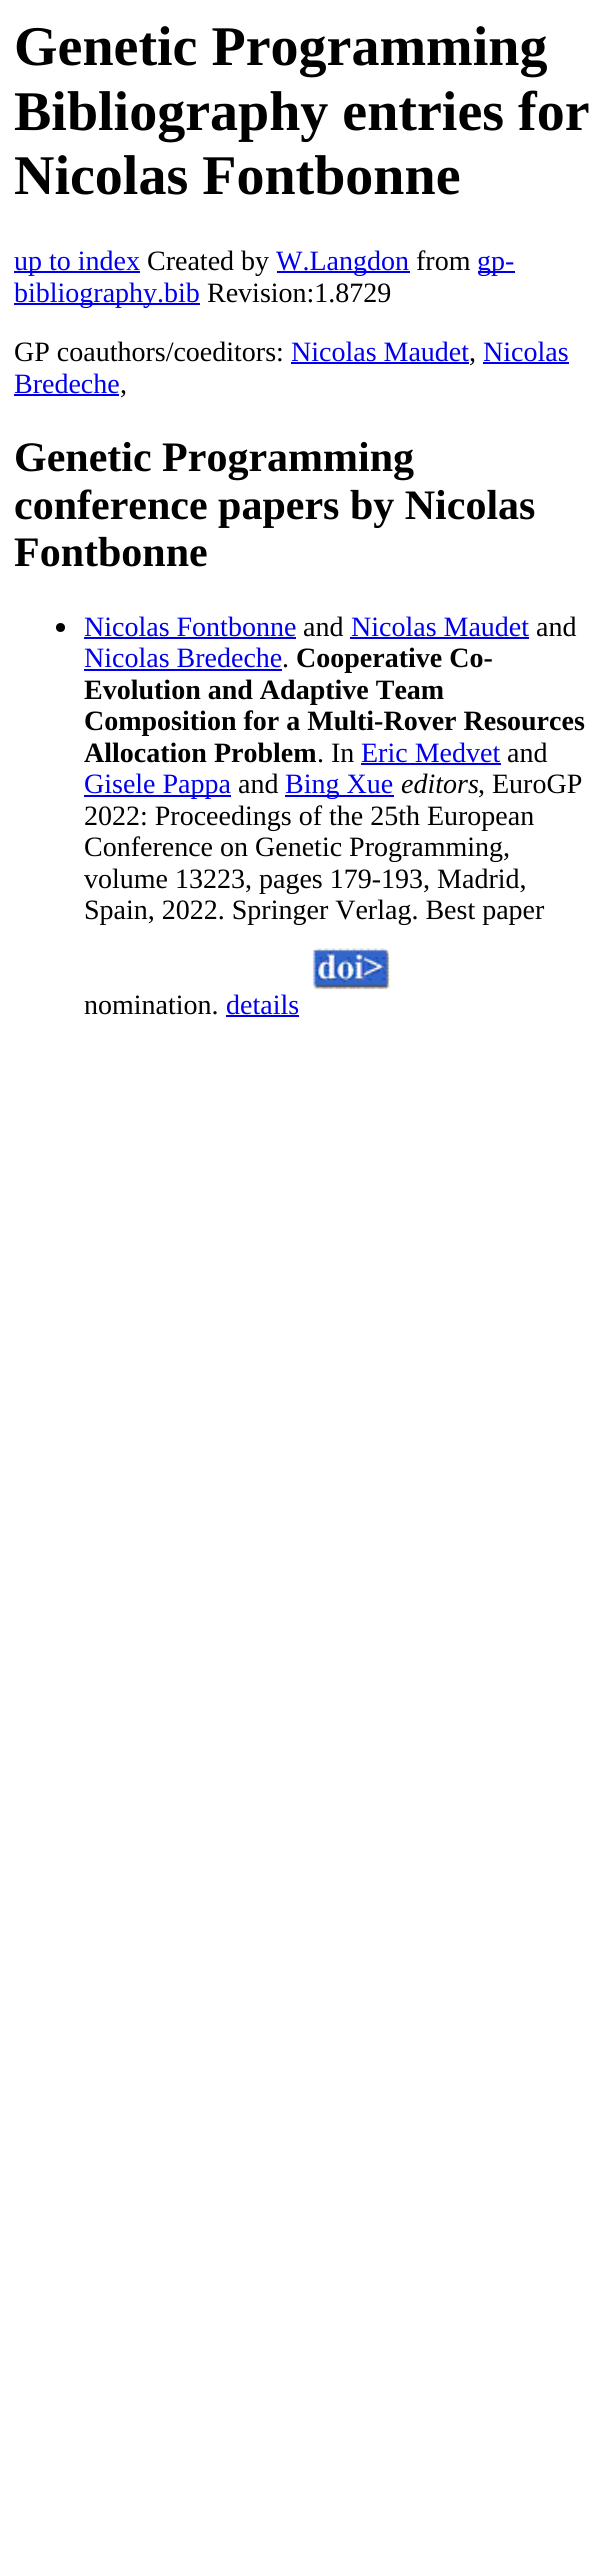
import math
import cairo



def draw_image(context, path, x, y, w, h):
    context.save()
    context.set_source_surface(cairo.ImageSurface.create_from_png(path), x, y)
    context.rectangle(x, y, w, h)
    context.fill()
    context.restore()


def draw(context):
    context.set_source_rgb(1, 1, 1)
    context.paint()
    context.set_source_rgb(0, 0, 238 / 255)
    context.rectangle(14, 271, 126, 2)
    context.fill()
    context.rectangle(277, 271, 133, 2)
    context.fill()
    context.rectangle(478, 271, 37, 2)
    context.fill()
    context.rectangle(14, 303, 186, 2)
    context.fill()
    context.rectangle(291, 362, 178, 2)
    context.fill()
    context.rectangle(483, 362, 86, 2)
    context.fill()
    context.rectangle(14, 394, 105, 2)
    context.fill()
    context.set_source_rgb(0, 0, 0)
    context.arc(60.5, 627.5, 4.5, 0, 2 * math.pi)
    context.fill()
    context.set_source_rgb(0, 0, 238 / 255)
    context.rectangle(84, 637, 212, 2)
    context.fill()
    context.rectangle(350, 637, 179, 2)
    context.fill()
    context.rectangle(84, 669, 198, 2)
    context.fill()
    context.rectangle(361, 763, 140, 2)
    context.fill()
    context.rectangle(84, 795, 147, 2)
    context.fill()
    context.rectangle(285, 795, 109, 2)
    context.fill()
    draw_image(context, "images/1.png", 312, 948, 79, 42)
    context.rectangle(226, 1015, 73, 2)
    context.fill()
    context.select_font_face("Liberation Serif", cairo.FontSlant.NORMAL, cairo.FontWeight.BOLD)
    context.set_font_size(56)
    context.set_source_rgb(0, 0, 0)
    context.move_to(14, 65)
    context.show_text("Genetic Programming")
    context.move_to(14, 130)
    context.show_text("Bibliography entries for")
    context.move_to(14, 194)
    context.show_text("Nicolas Fontbonne")
    context.select_font_face("Liberation Serif")
    context.set_font_size(28)
    context.set_source_rgb(0, 0, 238 / 255)
    context.move_to(14, 270)
    context.show_text("up to index")
    context.set_source_rgb(0, 0, 0)
    context.move_to(147, 270)
    context.show_text("Created by")
    context.set_source_rgb(0, 0, 238 / 255)
    context.move_to(276, 270)
    context.show_text("W.Langdon")
    context.set_source_rgb(0, 0, 0)
    context.move_to(416, 270)
    context.show_text("from")
    context.set_source_rgb(0, 0, 238 / 255)
    context.move_to(477, 270)
    context.show_text("gp-")
    context.move_to(14, 302)
    context.show_text("bibliography.bib")
    context.set_source_rgb(0, 0, 0)
    context.move_to(207, 302)
    context.show_text("Revision:1.8729")
    context.move_to(14, 361)
    context.show_text("GP coauthors/coeditors:")
    context.set_source_rgb(0, 0, 238 / 255)
    context.move_to(291, 361)
    context.show_text("Nicolas Maudet")
    context.set_source_rgb(0, 0, 0)
    context.move_to(469, 361)
    context.show_text(",")
    context.set_source_rgb(0, 0, 238 / 255)
    context.move_to(483, 361)
    context.show_text("Nicolas")
    context.move_to(14, 393)
    context.show_text("Bredeche")
    context.set_source_rgb(0, 0, 0)
    context.move_to(120, 393)
    context.show_text(",")
    context.select_font_face("Liberation Serif", cairo.FontSlant.NORMAL, cairo.FontWeight.BOLD)
    context.set_font_size(42)
    context.move_to(14, 471)
    context.show_text("Genetic Programming")
    context.move_to(14, 519)
    context.show_text("conference papers by Nicolas")
    context.move_to(14, 566)
    context.show_text("Fontbonne")
    context.select_font_face("Liberation Serif")
    context.set_font_size(28)
    context.set_source_rgb(0, 0, 238 / 255)
    context.move_to(84, 636)
    context.show_text("Nicolas Fontbonne")
    context.set_source_rgb(0, 0, 0)
    context.move_to(303, 636)
    context.show_text("and")
    context.set_source_rgb(0, 0, 238 / 255)
    context.move_to(351, 636)
    context.show_text("Nicolas Maudet")
    context.set_source_rgb(0, 0, 0)
    context.move_to(536, 636)
    context.show_text("and")
    context.set_source_rgb(0, 0, 238 / 255)
    context.move_to(84, 667)
    context.show_text("Nicolas Bredeche")
    context.set_source_rgb(0, 0, 0)
    context.move_to(282, 667)
    context.show_text(".")
    context.select_font_face("Liberation Serif", cairo.FontSlant.NORMAL, cairo.FontWeight.BOLD)
    context.move_to(296, 667)
    context.show_text("Cooperative Co-")
    context.move_to(84, 699)
    context.show_text("Evolution and Adaptive Team")
    context.move_to(84, 730)
    context.show_text("Composition for a Multi-Rover Resources")
    context.move_to(84, 762)
    context.show_text("Allocation Problem")
    context.select_font_face("Liberation Serif")
    context.move_to(317, 762)
    context.show_text(". In")
    context.set_source_rgb(0, 0, 238 / 255)
    context.move_to(361, 762)
    context.show_text("Eric Medvet")
    context.set_source_rgb(0, 0, 0)
    context.move_to(507, 762)
    context.show_text("and")
    context.set_source_rgb(0, 0, 238 / 255)
    context.move_to(84, 793)
    context.show_text("Gisele Pappa")
    context.set_source_rgb(0, 0, 0)
    context.move_to(238, 793)
    context.show_text("and")
    context.set_source_rgb(0, 0, 238 / 255)
    context.move_to(285, 793)
    context.show_text("Bing Xue")
    context.select_font_face("Liberation Serif", cairo.FontSlant.ITALIC)
    context.set_source_rgb(0, 0, 0)
    context.move_to(401, 793)
    context.show_text("editors")
    context.select_font_face("Liberation Serif")
    context.move_to(478, 793)
    context.show_text(", EuroGP")
    context.move_to(84, 825)
    context.show_text("2022: Proceedings of the 25th European")
    context.move_to(84, 856)
    context.show_text("Conference on Genetic Programming,")
    context.move_to(84, 888)
    context.show_text("volume 13223, pages 179-193, Madrid,")
    context.move_to(84, 919)
    context.show_text("Spain, 2022. Springer Verlag. Best paper")
    context.move_to(84, 1014)
    context.show_text("nomination.")
    context.set_source_rgb(0, 0, 238 / 255)
    context.move_to(226, 1014)
    context.show_text("details")


surface = cairo.ImageSurface(cairo.Format.RGB24, 608, 2567)
context = cairo.Context(surface)
options = cairo.FontOptions()
options.set_hint_metrics(cairo.HintMetrics.OFF)
options.set_hint_style(cairo.HintStyle.NONE)
context.set_font_options(options)
context.set_miter_limit(4)
draw(context)
surface.write_to_png("out.png")
